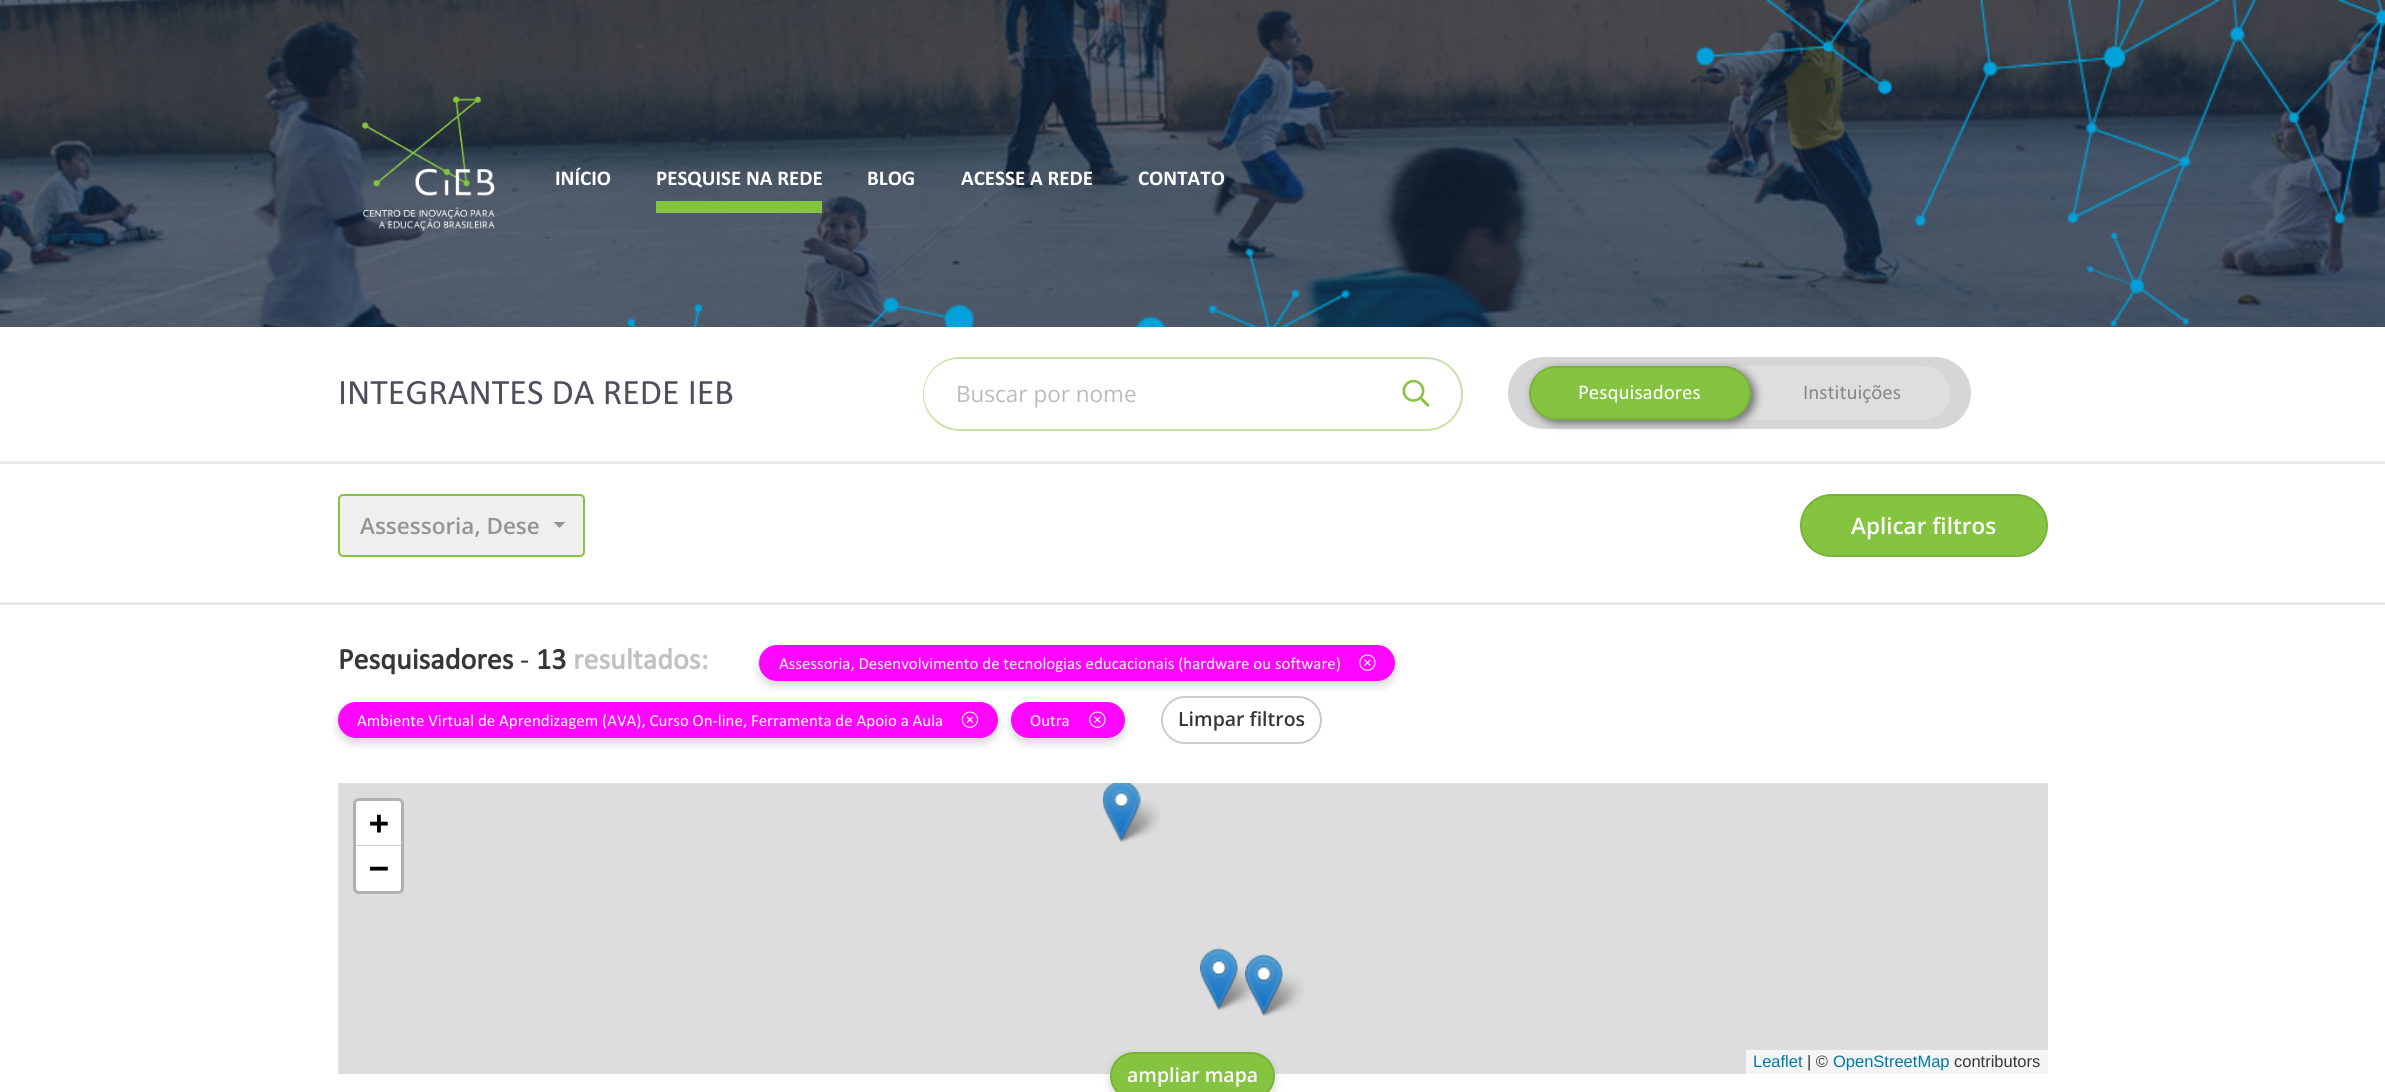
import math
import cairo



def rounded_rect(context, x, y, w, h, r):
    context.new_sub_path()
    for i, (u, v) in enumerate([(x + w - r, y + h - r), (x + r, y + h - r), (x + r, y + r), (x + w - r, y + r)]):
        context.arc(u, v, r, i * math.pi / 2, (i + 1) * math.pi / 2)
    context.close_path()


def draw_shadow(context, x, y, w, h, r, blur, alpha):
    context.push_group_with_content(cairo.Content.ALPHA)
    context.set_operator(cairo.Operator.SOURCE)
    for i in range(15, -16, -2):
        e = blur * i / 6
        if min(w, h) + 2 * e > 0:
            context.set_source_rgba(0, 0, 0, alpha * math.erfc((i - 1) / 8.5) / 2)
            rounded_rect(context, x - e, y - e, w + 2 * e, h + 2 * e, max(0, min(r + e + blur * .6, min(w, h) / 2 + e)))
            context.fill()
    context.mask(context.pop_group())


def draw_image(context, path, x, y, w, h):
    context.save()
    context.set_source_surface(cairo.ImageSurface.create_from_png(path), x, y)
    context.rectangle(x, y, w, h)
    context.fill()
    context.restore()


def draw(context):
    context.set_source_rgb(1, 1, 1)
    context.paint()
    draw_image(context, "images/1.png", 0, 0, 2385, 327)
    draw_image(context, "images/2.png", 361, 96, 134, 135)
    context.set_source_rgb(133 / 255, 196 / 255, 64 / 255)
    context.rectangle(656, 201, 166, 12)
    context.fill()
    rounded_rect(context, 924, 358, 538, 72, 36)
    context.set_source_rgb(198 / 255, 227 / 255, 165 / 255)
    context.stroke()
    context.set_source_rgb(1, 1, 1)
    context.new_path()
    context.move_to(958.5, 359)
    context.line_to(1373, 359)
    context.line_to(1373, 428)
    context.line_to(958.5, 428)
    context.curve_to(939.5, 428, 924, 412.5, 924, 393.5)
    context.curve_to(924, 374.5, 939.5, 359, 958.5, 359)
    context.close_path()
    context.fill()
    draw_image(context, "images/3.png", 1402, 379, 28, 28)
    context.set_source_rgb(214 / 255, 214 / 255, 214 / 255)
    rounded_rect(context, 1508, 357, 463, 72, 36)
    context.fill()
    context.set_source_rgb(222 / 255, 222 / 255, 222 / 255)
    rounded_rect(context, 1529, 366, 421, 54, 27)
    context.fill()
    context.set_source_rgb(0, 0, 0)
    draw_shadow(context, 1533, 369, 222, 54, 27, 4.5, 0.5)
    context.set_source_rgb(133 / 255, 196 / 255, 64 / 255)
    rounded_rect(context, 1530, 367, 220, 52, 26)
    context.fill_preserve()
    context.set_source_rgb(120 / 255, 179 / 255, 55 / 255)
    context.stroke()
    context.set_source_rgb(238 / 255, 238 / 255, 238 / 255)
    context.rectangle(0, 461, 2385, 1)
    context.fill()
    context.set_source_rgb(230 / 255, 230 / 255, 230 / 255)
    context.rectangle(0, 462, 2385, 2)
    context.fill()
    context.set_source_rgb(239 / 255, 239 / 255, 239 / 255)
    rounded_rect(context, 339, 495, 245, 61, 4)
    context.fill_preserve()
    context.set_source_rgb(133 / 255, 196 / 255, 64 / 255)
    context.stroke()
    context.set_source_rgb(148 / 255, 148 / 255, 148 / 255)
    context.new_path()
    context.move_to(553.5, 522)
    context.line_to(565.5, 522)
    context.line_to(559.5, 528)
    context.close_path()
    context.fill()
    context.set_source_rgb(133 / 255, 196 / 255, 64 / 255)
    rounded_rect(context, 1801, 495, 246, 61, 30.5)
    context.fill_preserve()
    context.set_source_rgb(120 / 255, 179 / 255, 55 / 255)
    context.stroke()
    context.set_source_rgb(238 / 255, 238 / 255, 238 / 255)
    context.rectangle(0, 602, 2385, 1)
    context.fill()
    context.set_source_rgb(230 / 255, 230 / 255, 230 / 255)
    context.rectangle(0, 603, 2385, 2)
    context.fill()
    context.set_source_rgb(0, 0, 0)
    draw_shadow(context, 759, 650, 636, 36, 18, 4.5, 0.16)
    context.set_source_rgb(1, 6 / 255, 1)
    rounded_rect(context, 759, 645, 636, 36, 18)
    context.fill()
    draw_image(context, "images/4.png", 1359, 654, 17, 17)
    context.set_source_rgb(0, 0, 0)
    draw_shadow(context, 338, 707, 660, 36, 18, 4.5, 0.16)
    context.set_source_rgb(1, 6 / 255, 1)
    rounded_rect(context, 338, 702, 660, 36, 18)
    context.fill()
    draw_image(context, "images/5.png", 961, 711, 18, 17)
    context.set_source_rgb(0, 0, 0)
    draw_shadow(context, 1011, 707, 114, 36, 18, 4.5, 0.16)
    context.set_source_rgb(1, 6 / 255, 1)
    rounded_rect(context, 1011, 702, 114, 36, 18)
    context.fill()
    draw_image(context, "images/4.png", 1089, 711, 17, 17)
    rounded_rect(context, 1162, 697, 159, 46, 23)
    context.set_source_rgb(204 / 255, 204 / 255, 204 / 255)
    context.stroke()
    context.set_source_rgb(221 / 255, 221 / 255, 221 / 255)
    context.rectangle(338, 783, 1710, 291)
    context.fill()
    draw_image(context, "images/9.png", 1116, 799, 45, 43)
    draw_image(context, "images/6.png", 1103, 783, 38, 59)
    draw_image(context, "images/10.png", 1213, 967, 42, 43)
    draw_image(context, "images/7.png", 1200, 948, 38, 62)
    draw_image(context, "images/11.png", 1258, 973, 46, 43)
    draw_image(context, "images/8.png", 1245, 954, 38, 62)
    rounded_rect(context, 354.5, 799.5, 48, 93, 4.5)
    context.set_source_rgb(177 / 255, 177 / 255, 177 / 255)
    context.set_line_width(3)
    context.stroke()
    context.set_source_rgb(1, 1, 1)
    context.new_path()
    context.move_to(359, 801)
    context.line_to(398, 801)
    context.curve_to(399.5, 801, 401, 802.5, 401, 804)
    context.line_to(401, 846)
    context.line_to(356, 846)
    context.line_to(356, 804)
    context.curve_to(356, 802.5, 357.5, 801, 359, 801)
    context.close_path()
    context.fill()
    context.set_source_rgb(204 / 255, 204 / 255, 204 / 255)
    context.rectangle(356, 845, 45, 1)
    context.fill()
    context.set_source_rgb(1, 1, 1)
    context.new_path()
    context.move_to(356, 846)
    context.line_to(401, 846)
    context.line_to(401, 888)
    context.curve_to(401, 889.5, 399.5, 891, 398, 891)
    context.line_to(359, 891)
    context.curve_to(357.5, 891, 356, 889.5, 356, 888)
    context.close_path()
    context.fill()
    context.set_source_rgb(245 / 255, 245 / 255, 245 / 255)
    context.rectangle(1746, 1050, 302, 24)
    context.fill()
    context.set_source_rgb(0, 0, 0)
    draw_shadow(context, 1110, 1056, 165, 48, 24, 4.5, 0.16)
    context.set_source_rgb(133 / 255, 196 / 255, 64 / 255)
    rounded_rect(context, 1111, 1053, 163, 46, 23)
    context.fill_preserve()
    context.set_source_rgb(120 / 255, 179 / 255, 55 / 255)
    context.set_line_width(2)
    context.stroke()
    context.select_font_face("Calibri", cairo.FontSlant.NORMAL, cairo.FontWeight.BOLD)
    context.set_font_size(21)
    context.set_source_rgb(1, 1, 1)
    context.move_to(555, 185)
    context.show_text("INÍCIO")
    context.move_to(656, 185)
    context.show_text("PESQUISE NA REDE")
    context.move_to(867, 185)
    context.show_text("BLOG")
    context.move_to(961, 185)
    context.show_text("ACESSE A REDE")
    context.move_to(1138, 185)
    context.show_text("CONTATO")
    context.select_font_face("Calibri")
    context.set_font_size(36)
    context.set_source_rgb(77 / 255, 79 / 255, 92 / 255)
    context.move_to(338, 404)
    context.show_text("INTEGRANTES DA REDE IEB")
    context.select_font_face("Open Sans")
    context.set_font_size(22.5)
    context.set_source_rgb(186 / 255, 187 / 255, 188 / 255)
    context.move_to(956, 402)
    context.show_text("Buscar por nome")
    context.select_font_face("Calibri")
    context.set_font_size(21)
    context.set_source_rgb(1, 1, 1)
    context.move_to(1578, 399)
    context.show_text("Pesquisadores")
    context.set_source_rgb(136 / 255, 136 / 255, 136 / 255)
    context.move_to(1803, 399)
    context.show_text("Instituições")
    context.select_font_face("Open Sans SemiBold")
    context.set_font_size(22.5)
    context.set_source_rgb(148 / 255, 148 / 255, 148 / 255)
    context.move_to(360, 534)
    context.show_text("Assessoria, Dese")
    context.set_source_rgb(1, 1, 1)
    context.move_to(1851, 534)
    context.show_text("Aplicar filtros")
    context.select_font_face("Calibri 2", cairo.FontSlant.NORMAL, cairo.FontWeight.BOLD)
    context.set_font_size(30)
    context.set_source_rgb(55 / 255, 55 / 255, 54 / 255)
    context.move_to(338, 669)
    context.show_text("Pesquisadores")
    context.select_font_face("Calibri")
    context.move_to(520, 669)
    context.show_text("-")
    context.select_font_face("Calibri 2", cairo.FontSlant.NORMAL, cairo.FontWeight.BOLD)
    context.move_to(536, 669)
    context.show_text("13")
    context.set_source_rgb(193 / 255, 193 / 255, 193 / 255)
    context.move_to(573, 669)
    context.show_text("resultados:")
    context.select_font_face("Calibri")
    context.set_font_size(16.9)
    context.set_source_rgb(1, 1, 1)
    context.move_to(779, 669)
    context.show_text("Assessoria, Desenvolvimento de tecnologias educacionais (hardware ou software)")
    context.move_to(357, 726)
    context.show_text("Ambiente Virtual de Aprendizagem (AVA), Curso On-line, Ferramenta de Apoio a Aula")
    context.move_to(1030, 726)
    context.show_text("Outra")
    context.select_font_face("Open Sans SemiBold")
    context.set_font_size(19.5)
    context.set_source_rgb(55 / 255, 55 / 255, 54 / 255)
    context.move_to(1178, 726)
    context.show_text("Limpar filtros")
    context.select_font_face("DejaVu Sans Mono", cairo.FontSlant.NORMAL, cairo.FontWeight.BOLD)
    context.set_font_size(33)
    context.set_source_rgb(0, 0, 0)
    context.move_to(369, 834)
    context.show_text("+")
    context.move_to(369, 879)
    context.show_text("−")
    context.select_font_face("Liberation Sans")
    context.set_font_size(16.5)
    context.set_source_rgb(0, 120 / 255, 168 / 255)
    context.move_to(1753, 1067)
    context.show_text("Leaflet")
    context.set_source_rgb(55 / 255, 55 / 255, 54 / 255)
    context.move_to(1807, 1067)
    context.show_text("| ©")
    context.set_source_rgb(0, 120 / 255, 168 / 255)
    context.move_to(1833, 1067)
    context.show_text("OpenStreetMap")
    context.set_source_rgb(55 / 255, 55 / 255, 54 / 255)
    context.move_to(1954, 1067)
    context.show_text("contributors")
    context.select_font_face("Open Sans SemiBold")
    context.set_font_size(19.5)
    context.set_source_rgb(1, 1, 1)
    context.move_to(1127, 1082)
    context.show_text("ampliar mapa")


surface = cairo.ImageSurface(cairo.Format.RGB24, 2385, 1092)
context = cairo.Context(surface)
options = cairo.FontOptions()
options.set_hint_metrics(cairo.HintMetrics.OFF)
options.set_hint_style(cairo.HintStyle.NONE)
context.set_font_options(options)
context.set_miter_limit(4)
draw(context)
surface.write_to_png("out.png")
